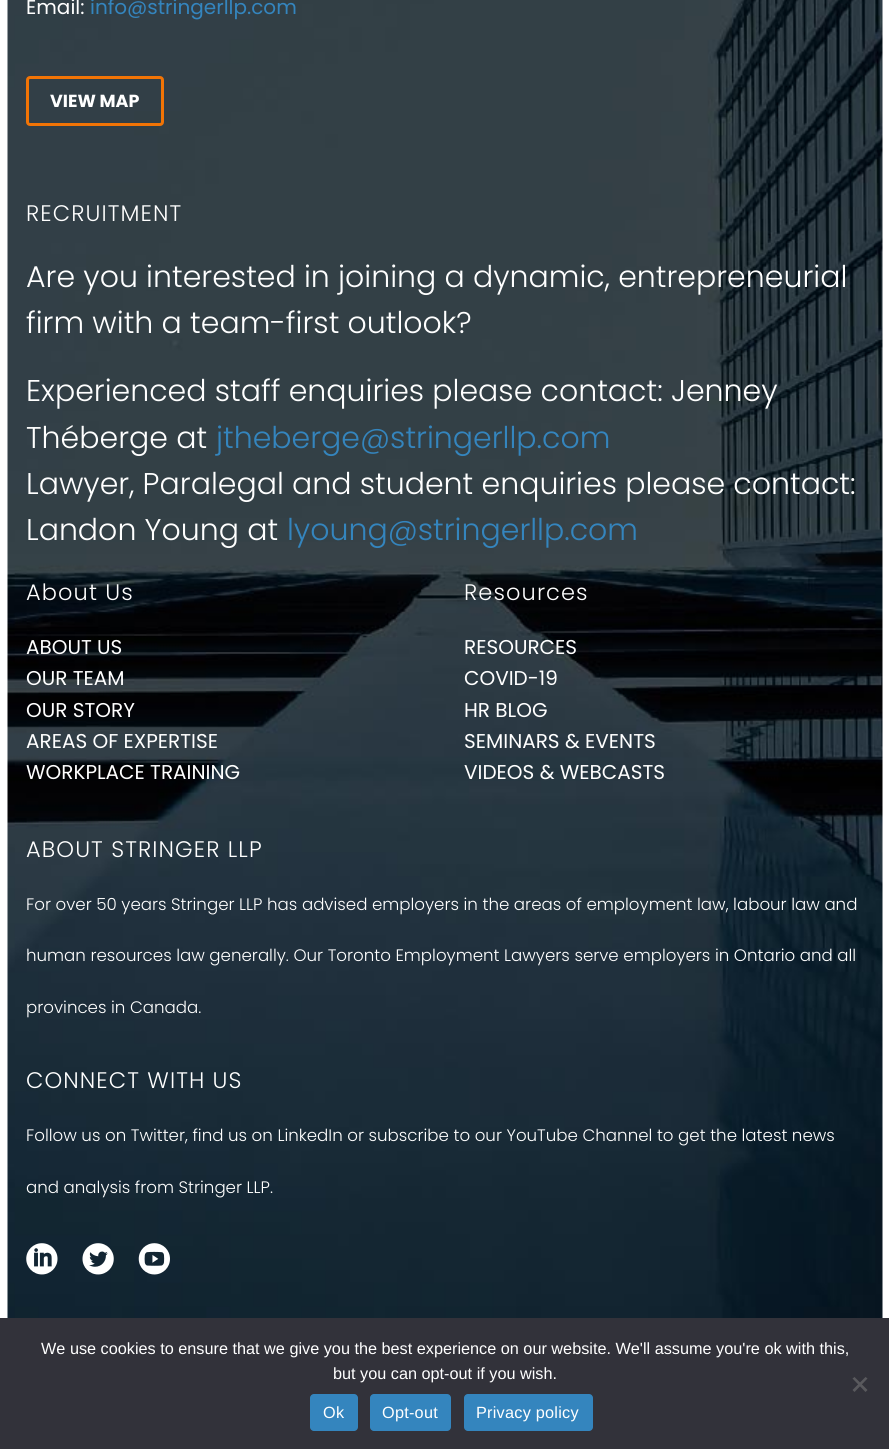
import math
import cairo



def draw_spaced(context, x, y, s, letter, word):
    context.move_to(x, y)
    for ch in s:
        context.show_text(ch)
        context.rel_move_to(letter + word * (ch == ' '), 0)


def rounded_rect(context, x, y, w, h, r):
    context.new_sub_path()
    for i, (u, v) in enumerate([(x + w - r, y + h - r), (x + r, y + h - r), (x + r, y + r), (x + w - r, y + r)]):
        context.arc(u, v, r, i * math.pi / 2, (i + 1) * math.pi / 2)
    context.close_path()


def draw_image(context, path, x, y, w, h):
    context.save()
    context.set_source_surface(cairo.ImageSurface.create_from_png(path), x, y)
    context.rectangle(x, y, w, h)
    context.fill()
    context.restore()


def draw(context):
    context.set_source_rgb(1, 1, 1)
    context.paint()
    draw_image(context, "images/1.png", 7, 0, 876, 1318)
    rounded_rect(context, 27.5, 77.5, 135, 47, 2.5)
    context.set_source_rgb(242 / 255, 116 / 255, 5 / 255)
    context.set_line_width(3)
    context.stroke()
    draw_image(context, "images/2.png", 26, 1243, 32, 32)
    draw_image(context, "images/3.png", 82, 1243, 32, 32)
    draw_image(context, "images/4.png", 138, 1243, 32, 32)
    context.set_source_rgb(50 / 255, 50 / 255, 58 / 255)
    context.rectangle(0, 1318, 889, 131)
    context.fill()
    context.set_source_rgb(89 / 255, 89 / 255, 93 / 255)
    context.new_path()
    context.move_to(865.5, 1377)
    context.line_to(867.5, 1378.5)
    context.line_to(854.5, 1392)
    context.line_to(852.5, 1390)
    context.close_path()
    context.fill()
    context.new_path()
    context.move_to(852.5, 1378.5)
    context.line_to(854.5, 1377)
    context.line_to(867.5, 1390)
    context.line_to(865.5, 1392)
    context.close_path()
    context.fill()
    context.set_source_rgb(52 / 255, 133 / 255, 190 / 255)
    rounded_rect(context, 310, 1394, 48, 37, 4)
    context.fill()
    rounded_rect(context, 370, 1394, 81, 37, 4)
    context.fill()
    rounded_rect(context, 464, 1394, 129, 37, 4)
    context.fill()
    context.select_font_face("Poppins")
    context.set_font_size(20)
    context.set_source_rgb(1, 1, 1)
    context.move_to(26, 14)
    context.show_text("Email:")
    context.set_source_rgb(52 / 255, 133 / 255, 190 / 255)
    context.move_to(90, 14)
    context.show_text("info@stringerllp.com")
    context.select_font_face("Poppins", cairo.FontSlant.NORMAL, cairo.FontWeight.BOLD)
    context.set_font_size(17.5)
    context.set_source_rgb(1, 1, 1)
    context.move_to(50, 107)
    context.show_text("VIEW MAP")
    context.select_font_face("Poppins Light")
    context.set_font_size(22.5)
    draw_spaced(context, 26, 221, "RECRUITMENT", 1.1, 0)
    context.set_font_size(30)
    context.move_to(26, 287)
    context.show_text("Are you interested in joining a dynamic, entrepreneurial")
    context.move_to(26, 333)
    context.show_text("firm with a team-first outlook?")
    context.move_to(26, 401)
    context.show_text("Experienced staff enquiries please contact: Jenney")
    context.move_to(26, 448)
    context.show_text("Théberge at")
    context.set_source_rgb(52 / 255, 133 / 255, 190 / 255)
    context.move_to(216, 448)
    context.show_text("jtheberge@stringerllp.com")
    context.set_source_rgb(1, 1, 1)
    context.move_to(26, 494)
    context.show_text("Lawyer, Paralegal and student enquiries please contact:")
    context.move_to(26, 540)
    context.show_text("Landon Young at")
    context.set_source_rgb(52 / 255, 133 / 255, 190 / 255)
    context.move_to(287, 540)
    context.show_text("lyoung@stringerllp.com")
    context.set_font_size(22.5)
    context.set_source_rgb(1, 1, 1)
    draw_spaced(context, 26, 600, "About Us", 1.1, 0)
    context.select_font_face("Poppins")
    context.set_font_size(20)
    context.move_to(26, 654)
    context.show_text("ABOUT US")
    context.move_to(26, 685)
    context.show_text("OUR TEAM")
    context.move_to(26, 717)
    context.show_text("OUR STORY")
    context.move_to(26, 748)
    context.show_text("AREAS OF EXPERTISE")
    context.move_to(26, 779)
    context.show_text("WORKPLACE TRAINING")
    context.select_font_face("Poppins Light")
    context.set_font_size(22.5)
    draw_spaced(context, 464, 600, "Resources", 1.1, 0)
    context.select_font_face("Poppins")
    context.set_font_size(20)
    context.move_to(464, 654)
    context.show_text("RESOURCES")
    context.move_to(464, 685)
    context.show_text("COVID-19")
    context.move_to(464, 717)
    context.show_text("HR BLOG")
    context.move_to(464, 748)
    context.show_text("SEMINARS & EVENTS")
    context.move_to(464, 779)
    context.show_text("VIDEOS & WEBCASTS")
    context.select_font_face("Poppins Light")
    context.set_font_size(22.5)
    draw_spaced(context, 26, 857, "ABOUT STRINGER LLP", 1.1, 0)
    context.set_font_size(16.65)
    context.move_to(26, 910)
    context.show_text("For over 50 years Stringer LLP has advised employers in the areas of employment law, labour law and")
    context.move_to(26, 961)
    context.show_text("human resources law generally. Our Toronto Employment Lawyers serve employers in Ontario and all")
    context.move_to(26, 1013)
    context.show_text("provinces in Canada.")
    context.set_font_size(22.5)
    draw_spaced(context, 26, 1088, "CONNECT WITH US", 1.1, 0)
    context.set_font_size(16.65)
    context.move_to(26, 1141)
    context.show_text("Follow us on Twitter, find us on LinkedIn or subscribe to our YouTube Channel to get the latest news")
    context.move_to(26, 1193)
    context.show_text("and analysis from Stringer LLP.")
    context.select_font_face("Liberation Sans")
    context.set_font_size(16.25)
    context.move_to(41, 1354)
    context.show_text("We use cookies to ensure that we give you the best experience on our website. We'll assume you're ok with this,")
    context.move_to(333, 1379)
    context.show_text("but you can opt-out if you wish.")
    draw_spaced(context, 323, 1418, "Ok", 0.25, 0)
    draw_spaced(context, 382, 1418, "Opt-out", 0.25, 0)
    draw_spaced(context, 476, 1418, "Privacy policy", 0.25, 0)


surface = cairo.ImageSurface(cairo.Format.RGB24, 889, 1449)
context = cairo.Context(surface)
options = cairo.FontOptions()
options.set_hint_metrics(cairo.HintMetrics.OFF)
options.set_hint_style(cairo.HintStyle.NONE)
context.set_font_options(options)
context.set_miter_limit(4)
draw(context)
surface.write_to_png("out.png")
